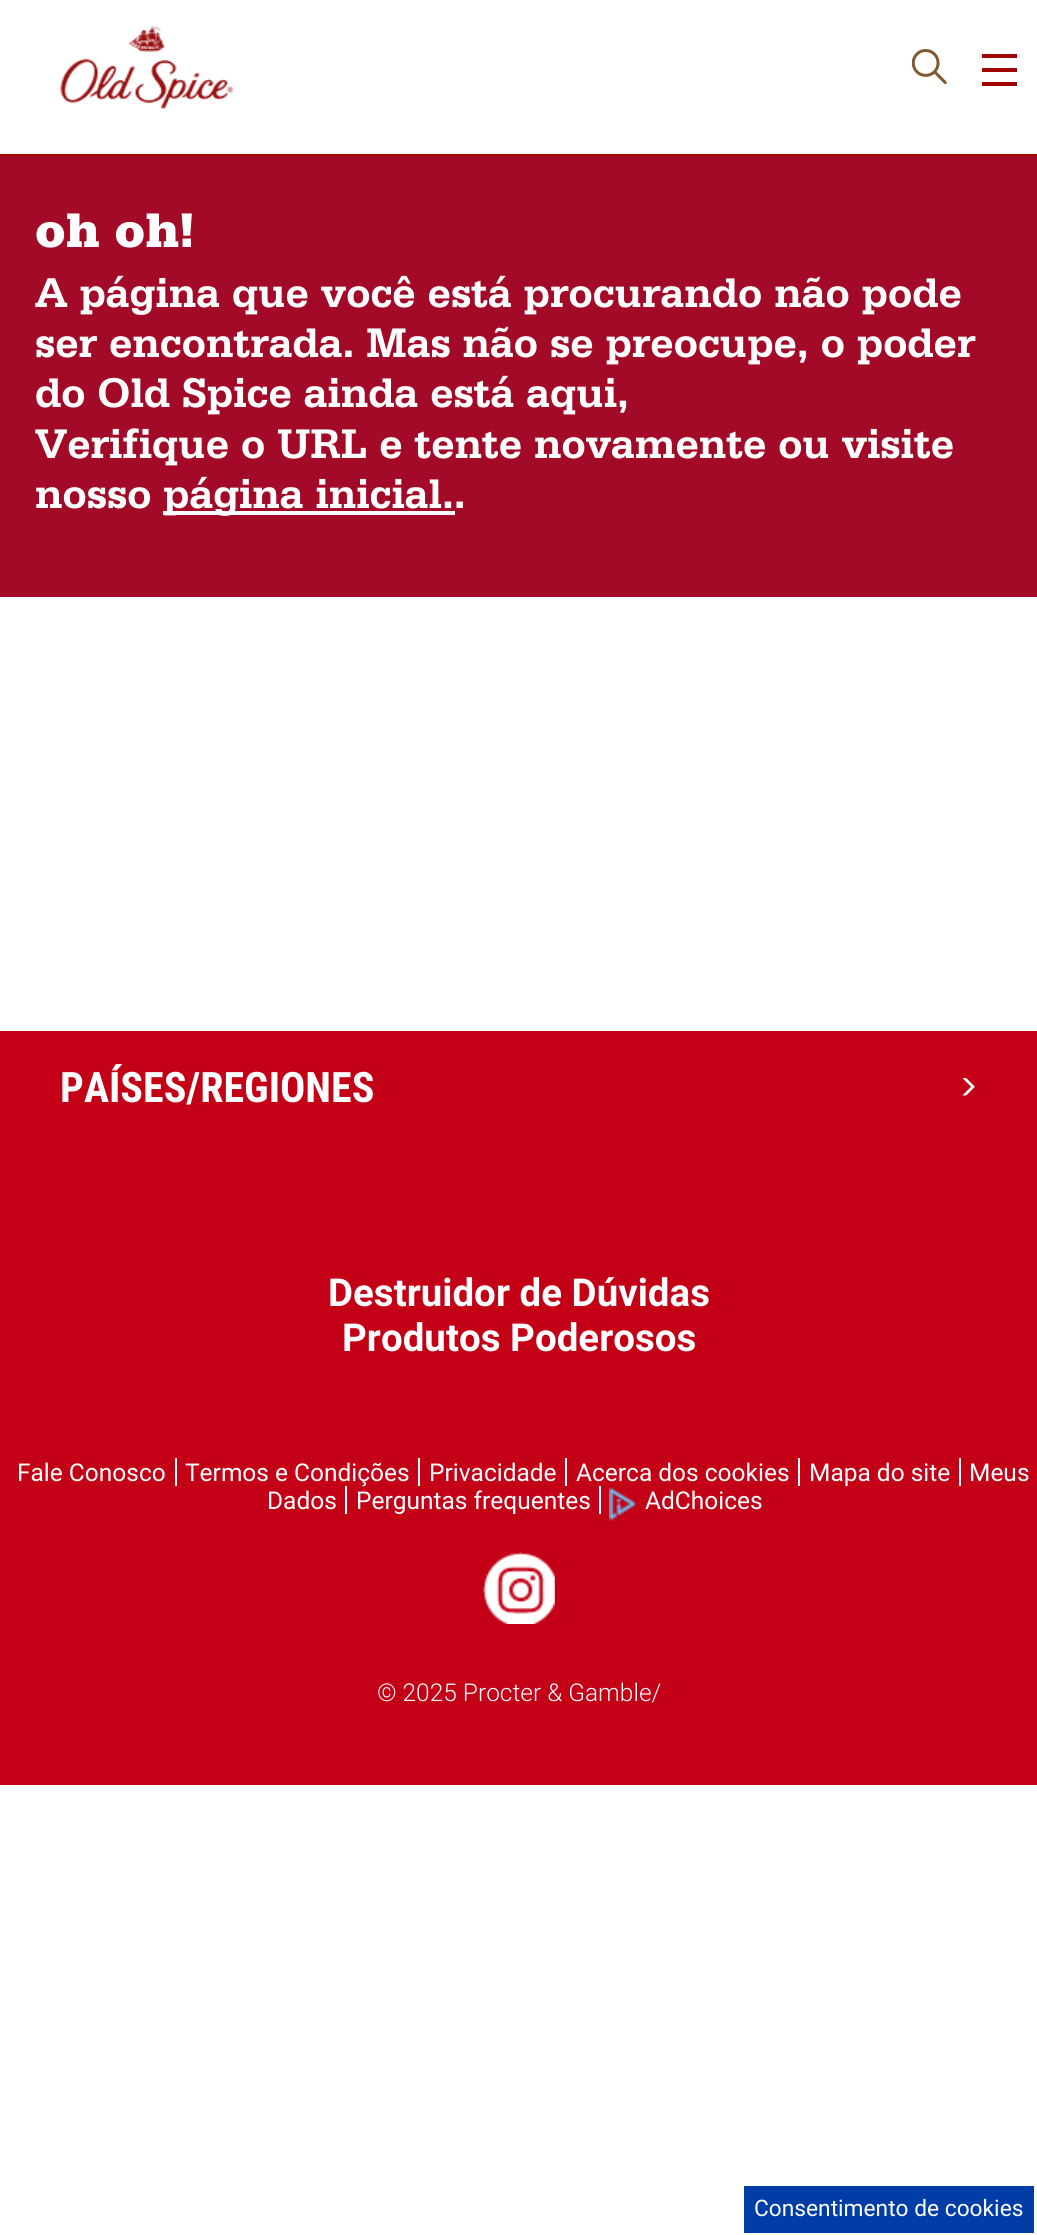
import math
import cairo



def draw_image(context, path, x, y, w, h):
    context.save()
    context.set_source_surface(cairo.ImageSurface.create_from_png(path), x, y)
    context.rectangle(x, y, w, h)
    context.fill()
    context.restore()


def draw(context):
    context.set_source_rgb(1, 1, 1)
    context.paint()
    context.set_source_rgb(161 / 255, 5 / 255, 0)
    context.rectangle(0, 154, 1037, 2)
    context.fill()
    draw_image(context, "images/1.png", 60, 26, 174, 83)
    draw_image(context, "images/2.png", 912, 49, 35, 35)
    context.rectangle(982, 54, 35, 4)
    context.fill()
    context.rectangle(982, 68, 35, 4)
    context.fill()
    context.rectangle(982, 82, 35, 4)
    context.fill()
    context.set_source_rgb(163 / 255, 10 / 255, 39 / 255)
    context.rectangle(0, 156, 1037, 441)
    context.fill()
    context.set_source_rgb(1, 1, 1)
    context.rectangle(163, 511, 292, 4)
    context.fill()
    context.set_source_rgb(196 / 255, 0, 23 / 255)
    context.rectangle(0, 1031, 1037, 754)
    context.fill()
    draw_image(context, "images/3.png", 962, 1078, 13, 18)
    context.set_source_rgb(1, 1, 1)
    context.rectangle(175, 1458, 2, 28)
    context.fill()
    context.rectangle(418, 1458, 2, 28)
    context.fill()
    context.rectangle(565, 1458, 2, 28)
    context.fill()
    context.rectangle(798, 1458, 2, 28)
    context.fill()
    context.rectangle(959, 1458, 2, 28)
    context.fill()
    context.rectangle(345, 1486, 2, 28)
    context.fill()
    context.rectangle(599, 1486, 2, 28)
    context.fill()
    draw_image(context, "images/4.png", 609, 1487, 27, 34)
    draw_image(context, "images/5.png", 483, 1552, 72, 72)
    context.set_source_rgb(0, 61 / 255, 167 / 255)
    context.rectangle(744, 2186, 290, 47)
    context.fill()
    context.select_font_face("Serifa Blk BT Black")
    context.set_font_size(51)
    context.set_source_rgb(1, 1, 1)
    context.move_to(35, 247)
    context.show_text("oh oh!")
    context.select_font_face("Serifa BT", cairo.FontSlant.NORMAL, cairo.FontWeight.BOLD)
    context.set_font_size(43.75)
    context.move_to(35, 307)
    context.show_text("A página que você está procurando não pode")
    context.move_to(35, 357)
    context.show_text("ser encontrada. Mas não se preocupe, o poder")
    context.move_to(35, 407)
    context.show_text("do Old Spice ainda está aqui,")
    context.move_to(35, 458)
    context.show_text("Verifique o URL e tente novamente ou visite")
    context.move_to(35, 508)
    context.show_text("nosso")
    context.move_to(163, 508)
    context.show_text("página inicial..")
    context.select_font_face("Roboto Condensed", cairo.FontSlant.NORMAL, cairo.FontWeight.BOLD)
    context.set_font_size(42)
    context.move_to(60, 1102)
    context.show_text("PAÍSES/REGIONES")
    context.select_font_face("Roboto", cairo.FontSlant.NORMAL, cairo.FontWeight.BOLD)
    context.set_font_size(38.5)
    context.move_to(328, 1306)
    context.show_text("Destruidor de Dúvidas")
    context.move_to(342, 1351)
    context.show_text("Produtos Poderosos")
    context.select_font_face("Roboto")
    context.set_font_size(24.5)
    context.move_to(17, 1481)
    context.show_text("Fale Conosco")
    context.move_to(185, 1481)
    context.show_text("Termos e Condições")
    context.move_to(429, 1481)
    context.show_text("Privacidade")
    context.move_to(576, 1481)
    context.show_text("Acerca dos cookies")
    context.move_to(809, 1481)
    context.show_text("Mapa do site")
    context.move_to(969, 1481)
    context.show_text("Meus")
    context.move_to(267, 1509)
    context.show_text("Dados")
    context.move_to(356, 1509)
    context.show_text("Perguntas frequentes")
    context.move_to(645, 1509)
    context.show_text("AdChoices")
    context.select_font_face("Roboto Light")
    context.move_to(377, 1701)
    context.show_text("© 2025 Procter & Gamble/")
    context.select_font_face("Roboto")
    context.set_font_size(22.75)
    context.move_to(754, 2216)
    context.show_text("Consentimento de cookies")


surface = cairo.ImageSurface(cairo.Format.RGB24, 1037, 2235)
context = cairo.Context(surface)
options = cairo.FontOptions()
options.set_hint_metrics(cairo.HintMetrics.OFF)
options.set_hint_style(cairo.HintStyle.NONE)
context.set_font_options(options)
context.set_miter_limit(4)
draw(context)
surface.write_to_png("out.png")
